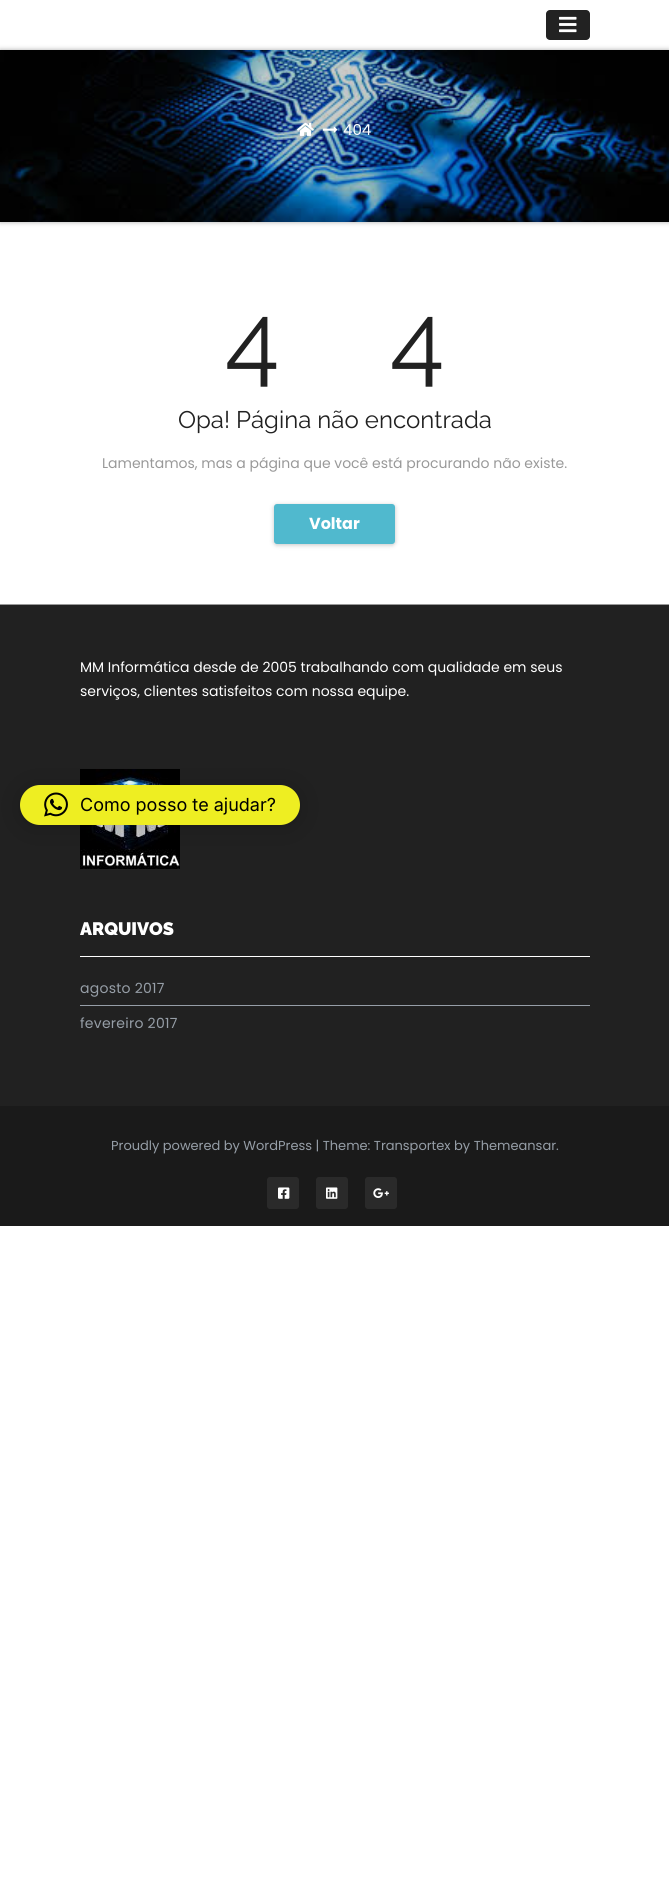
import math
import cairo



def draw_spaced(context, x, y, s, letter, word):
    context.move_to(x, y)
    for ch in s:
        context.show_text(ch)
        context.rel_move_to(letter + word * (ch == ' '), 0)


def rounded_rect(context, x, y, w, h, r):
    context.new_sub_path()
    for i, (u, v) in enumerate([(x + w - r, y + h - r), (x + r, y + h - r), (x + r, y + r), (x + w - r, y + r)]):
        context.arc(u, v, r, i * math.pi / 2, (i + 1) * math.pi / 2)
    context.close_path()


def draw_shadow(context, x, y, w, h, r, blur, alpha):
    context.push_group_with_content(cairo.Content.ALPHA)
    context.set_operator(cairo.Operator.SOURCE)
    for i in range(15, -16, -2):
        e = blur * i / 6
        if min(w, h) + 2 * e > 0:
            context.set_source_rgba(0, 0, 0, alpha * math.erfc((i - 1) / 8.5) / 2)
            rounded_rect(context, x - e, y - e, w + 2 * e, h + 2 * e, max(0, min(r + e + blur * .6, min(w, h) / 2 + e)))
            context.fill()
    context.mask(context.pop_group())


def draw_image(context, path, x, y, w, h):
    context.save()
    context.set_source_surface(cairo.ImageSurface.create_from_png(path), x, y)
    context.rectangle(x, y, w, h)
    context.fill()
    context.restore()


def draw(context):
    context.set_source_rgb(1, 1, 1)
    context.paint()
    context.set_source_rgb(34 / 255, 34 / 255, 34 / 255)
    rounded_rect(context, 546, 10, 44, 30, 4)
    context.fill()
    draw_image(context, "images/1.png", 559, 16, 18, 17)
    context.set_source_rgb(170 / 255, 170 / 255, 170 / 255)
    draw_shadow(context, 0, 50, 669, 172, 0, 2.5, 1)
    draw_image(context, "images/2.png", 0, 50, 669, 172)
    draw_image(context, "images/3.png", 297, 122, 17, 14)
    draw_image(context, "images/4.png", 323, 126, 15, 7)
    context.set_source_rgb(0, 0, 0)
    draw_shadow(context, 274, 505, 121, 40, 3, 2, 0.12)
    draw_shadow(context, 274, 505, 121, 40, 3, 3, 0.12)
    context.set_source_rgb(80 / 255, 185 / 255, 206 / 255)
    rounded_rect(context, 274, 504, 121, 40, 3)
    context.fill()
    context.set_source_rgb(33 / 255, 33 / 255, 33 / 255)
    context.rectangle(0, 605, 669, 501)
    context.fill()
    context.set_source_rgb(153 / 255, 153 / 255, 153 / 255)
    context.rectangle(0, 604, 669, 1)
    context.fill()
    draw_image(context, "images/5.png", 80, 769, 100, 100)
    context.set_source_rgb(1, 1, 1)
    context.rectangle(80, 956, 510, 1)
    context.fill()
    context.set_source_rgb(150 / 255, 158 / 255, 167 / 255)
    context.rectangle(80, 1005, 510, 1)
    context.fill()
    context.set_source_rgb(26 / 255, 26 / 255, 26 / 255)
    context.rectangle(0, 1106, 669, 120)
    context.fill()
    context.set_source_rgb(42 / 255, 42 / 255, 42 / 255)
    rounded_rect(context, 267, 1177, 32, 32, 3)
    context.fill()
    draw_image(context, "images/6.png", 278, 1187, 12, 12)
    rounded_rect(context, 316, 1177, 32, 32, 3)
    context.fill()
    draw_image(context, "images/7.png", 326, 1187, 12, 12)
    rounded_rect(context, 365, 1177, 32, 32, 3)
    context.fill()
    draw_image(context, "images/8.png", 373, 1188, 16, 10)
    context.set_source_rgb(0, 0, 0)
    draw_shadow(context, 20, 787, 280, 40, 20, 16, 0.16)
    draw_shadow(context, 20, 786, 280, 40, 20, 3, 0.06)
    context.set_source_rgb(238 / 255, 238 / 255, 34 / 255)
    rounded_rect(context, 20, 785, 280, 40, 20)
    context.fill()
    draw_image(context, "images/9.png", 44, 792, 24, 25)
    context.select_font_face("Poppins")
    context.set_font_size(15)
    context.set_source_rgb(1, 1, 1)
    context.move_to(343, 135)
    context.show_text("404")
    context.select_font_face("Raleway")
    context.set_font_size(100)
    context.set_source_rgb(33 / 255, 33 / 255, 33 / 255)
    context.move_to(225, 374)
    context.show_text("4")
    context.move_to(390, 374)
    context.show_text("4")
    context.set_font_size(24)
    context.move_to(178, 428)
    context.show_text("Opa! Página não encontrada")
    context.select_font_face("Poppins")
    context.set_font_size(14)
    context.set_source_rgb(153 / 255, 153 / 255, 153 / 255)
    context.move_to(102, 468)
    context.show_text("Lamentamos, mas a página que você está procurando não existe.")
    context.select_font_face("Poppins", cairo.FontSlant.NORMAL, cairo.FontWeight.BOLD)
    context.set_font_size(16)
    context.set_source_rgb(1, 1, 1)
    context.move_to(309, 529)
    context.show_text("Voltar")
    context.select_font_face("Poppins")
    context.set_font_size(14)
    context.move_to(80, 672)
    context.show_text("MM Informática desde de 2005 trabalhando com qualidade em seus")
    context.move_to(80, 696)
    context.show_text("serviços, clientes satisfeitos com nossa equipe.")
    context.select_font_face("Raleway Black")
    context.set_font_size(18)
    context.move_to(80, 935)
    context.show_text("ARQUIVOS")
    context.select_font_face("Poppins")
    context.set_font_size(14)
    context.set_source_rgb(150 / 255, 158 / 255, 167 / 255)
    draw_spaced(context, 80, 993, "agosto 2017", 0.25, 0)
    draw_spaced(context, 80, 1028, "fevereiro 2017", 0.25, 0)
    context.set_font_size(13)
    context.move_to(111, 1150)
    context.show_text("Proudly powered by WordPress | Theme: Transportex by Themeansar.")
    context.select_font_face("Inter")
    context.set_font_size(18)
    context.set_source_rgb(0, 0, 0)
    context.move_to(80, 811)
    context.show_text("Como posso te ajudar?")


surface = cairo.ImageSurface(cairo.Format.RGB24, 669, 1903)
context = cairo.Context(surface)
options = cairo.FontOptions()
options.set_hint_metrics(cairo.HintMetrics.OFF)
options.set_hint_style(cairo.HintStyle.NONE)
context.set_font_options(options)
context.set_miter_limit(4)
draw(context)
surface.write_to_png("out.png")
